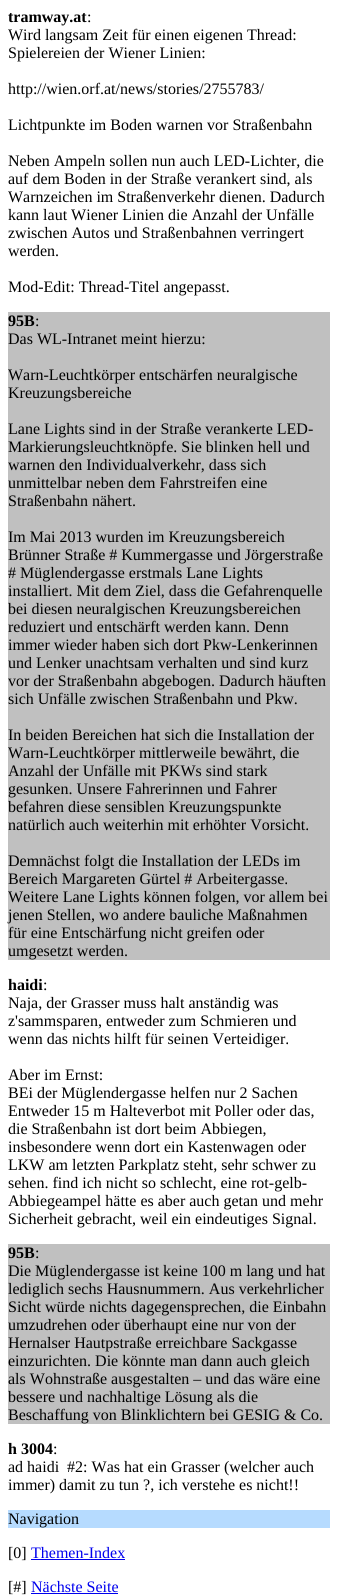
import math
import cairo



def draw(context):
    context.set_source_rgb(1, 1, 1)
    context.paint()
    context.set_source_rgb(192 / 255, 192 / 255, 192 / 255)
    context.rectangle(8, 312, 322, 648)
    context.fill()
    context.rectangle(8, 1244, 322, 180)
    context.fill()
    context.set_source_rgb(182 / 255, 219 / 255, 1)
    context.rectangle(8, 1510, 322, 18)
    context.fill()
    context.set_source_rgb(0, 0, 238 / 255)
    context.rectangle(31, 1559, 94, 1)
    context.fill()
    context.rectangle(31, 1593, 87, 1)
    context.fill()
    context.select_font_face("Liberation Serif", cairo.FontSlant.NORMAL, cairo.FontWeight.BOLD)
    context.set_font_size(16)
    context.set_source_rgb(0, 0, 0)
    context.move_to(8, 22)
    context.show_text("tramway.at")
    context.select_font_face("Liberation Serif")
    context.move_to(87, 22)
    context.show_text(":")
    context.move_to(8, 40)
    context.show_text("Wird langsam Zeit für einen eigenen Thread:")
    context.move_to(8, 58)
    context.show_text("Spielereien der Wiener Linien:")
    context.move_to(8, 94)
    context.show_text("http://wien.orf.at/news/stories/2755783/")
    context.move_to(8, 130)
    context.show_text("Lichtpunkte im Boden warnen vor Straßenbahn")
    context.move_to(8, 166)
    context.show_text("Neben Ampeln sollen nun auch LED-Lichter, die")
    context.move_to(8, 184)
    context.show_text("auf dem Boden in der Straße verankert sind, als")
    context.move_to(8, 202)
    context.show_text("Warnzeichen im Straßenverkehr dienen. Dadurch")
    context.move_to(8, 220)
    context.show_text("kann laut Wiener Linien die Anzahl der Unfälle")
    context.move_to(8, 238)
    context.show_text("zwischen Autos und Straßenbahnen verringert")
    context.move_to(8, 256)
    context.show_text("werden.")
    context.move_to(8, 292)
    context.show_text("Mod-Edit: Thread-Titel angepasst.")
    context.select_font_face("Liberation Serif", cairo.FontSlant.NORMAL, cairo.FontWeight.BOLD)
    context.move_to(8, 326)
    context.show_text("95B")
    context.select_font_face("Liberation Serif")
    context.move_to(35, 326)
    context.show_text(":")
    context.move_to(8, 344)
    context.show_text("Das WL-Intranet meint hierzu:")
    context.move_to(8, 380)
    context.show_text("Warn-Leuchtkörper entschärfen neuralgische")
    context.move_to(8, 398)
    context.show_text("Kreuzungsbereiche")
    context.move_to(8, 434)
    context.show_text("Lane Lights sind in der Straße verankerte LED-")
    context.move_to(8, 452)
    context.show_text("Markierungsleuchtknöpfe. Sie blinken hell und")
    context.move_to(8, 470)
    context.show_text("warnen den Individualverkehr, dass sich")
    context.move_to(8, 488)
    context.show_text("unmittelbar neben dem Fahrstreifen eine")
    context.move_to(8, 506)
    context.show_text("Straßenbahn nähert.")
    context.move_to(8, 542)
    context.show_text("Im Mai 2013 wurden im Kreuzungsbereich")
    context.move_to(8, 560)
    context.show_text("Brünner Straße # Kummergasse und Jörgerstraße")
    context.move_to(8, 578)
    context.show_text("# Müglendergasse erstmals Lane Lights")
    context.move_to(8, 596)
    context.show_text("installiert. Mit dem Ziel, dass die Gefahrenquelle")
    context.move_to(8, 614)
    context.show_text("bei diesen neuralgischen Kreuzungsbereichen")
    context.move_to(8, 632)
    context.show_text("reduziert und entschärft werden kann. Denn")
    context.move_to(8, 650)
    context.show_text("immer wieder haben sich dort Pkw-Lenkerinnen")
    context.move_to(8, 668)
    context.show_text("und Lenker unachtsam verhalten und sind kurz")
    context.move_to(8, 686)
    context.show_text("vor der Straßenbahn abgebogen. Dadurch häuften")
    context.move_to(8, 704)
    context.show_text("sich Unfälle zwischen Straßenbahn und Pkw.")
    context.move_to(8, 740)
    context.show_text("In beiden Bereichen hat sich die Installation der")
    context.move_to(8, 758)
    context.show_text("Warn-Leuchtkörper mittlerweile bewährt, die")
    context.move_to(8, 776)
    context.show_text("Anzahl der Unfälle mit PKWs sind stark")
    context.move_to(8, 794)
    context.show_text("gesunken. Unsere Fahrerinnen und Fahrer")
    context.move_to(8, 812)
    context.show_text("befahren diese sensiblen Kreuzungspunkte")
    context.move_to(8, 830)
    context.show_text("natürlich auch weiterhin mit erhöhter Vorsicht.")
    context.move_to(8, 866)
    context.show_text("Demnächst folgt die Installation der LEDs im")
    context.move_to(8, 884)
    context.show_text("Bereich Margareten Gürtel # Arbeitergasse.")
    context.move_to(8, 902)
    context.show_text("Weitere Lane Lights können folgen, vor allem bei")
    context.move_to(8, 920)
    context.show_text("jenen Stellen, wo andere bauliche Maßnahmen")
    context.move_to(8, 938)
    context.show_text("für eine Entschärfung nicht greifen oder")
    context.move_to(8, 956)
    context.show_text("umgesetzt werden.")
    context.select_font_face("Liberation Serif", cairo.FontSlant.NORMAL, cairo.FontWeight.BOLD)
    context.move_to(8, 990)
    context.show_text("haidi")
    context.select_font_face("Liberation Serif")
    context.move_to(43, 990)
    context.show_text(":")
    context.move_to(8, 1008)
    context.show_text("Naja, der Grasser muss halt anständig was")
    context.move_to(8, 1026)
    context.show_text("z'sammsparen, entweder zum Schmieren und")
    context.move_to(8, 1044)
    context.show_text("wenn das nichts hilft für seinen Verteidiger.")
    context.move_to(8, 1080)
    context.show_text("Aber im Ernst:")
    context.move_to(8, 1098)
    context.show_text("BEi der Müglendergasse helfen nur 2 Sachen")
    context.move_to(8, 1116)
    context.show_text("Entweder 15 m Halteverbot mit Poller oder das,")
    context.move_to(8, 1134)
    context.show_text("die Straßenbahn ist dort beim Abbiegen,")
    context.move_to(8, 1152)
    context.show_text("insbesondere wenn dort ein Kastenwagen oder")
    context.move_to(8, 1170)
    context.show_text("LKW am letzten Parkplatz steht, sehr schwer zu")
    context.move_to(8, 1188)
    context.show_text("sehen. find ich nicht so schlecht, eine rot-gelb-")
    context.move_to(8, 1206)
    context.show_text("Abbiegeampel hätte es aber auch getan und mehr")
    context.move_to(8, 1224)
    context.show_text("Sicherheit gebracht, weil ein eindeutiges Signal.")
    context.select_font_face("Liberation Serif", cairo.FontSlant.NORMAL, cairo.FontWeight.BOLD)
    context.move_to(8, 1258)
    context.show_text("95B")
    context.select_font_face("Liberation Serif")
    context.move_to(35, 1258)
    context.show_text(":")
    context.move_to(8, 1276)
    context.show_text("Die Müglendergasse ist keine 100 m lang und hat")
    context.move_to(8, 1294)
    context.show_text("lediglich sechs Hausnummern. Aus verkehrlicher")
    context.move_to(8, 1312)
    context.show_text("Sicht würde nichts dagegensprechen, die Einbahn")
    context.move_to(8, 1330)
    context.show_text("umzudrehen oder überhaupt eine nur von der")
    context.move_to(8, 1348)
    context.show_text("Hernalser Hautpstraße erreichbare Sackgasse")
    context.move_to(8, 1366)
    context.show_text("einzurichten. Die könnte man dann auch gleich")
    context.move_to(8, 1384)
    context.show_text("als Wohnstraße ausgestalten – und das wäre eine")
    context.move_to(8, 1402)
    context.show_text("bessere und nachhaltige Lösung als die")
    context.move_to(8, 1420)
    context.show_text("Beschaffung von Blinklichtern bei GESIG & Co.")
    context.select_font_face("Liberation Serif", cairo.FontSlant.NORMAL, cairo.FontWeight.BOLD)
    context.move_to(8, 1454)
    context.show_text("h 3004")
    context.select_font_face("Liberation Serif")
    context.move_to(53, 1454)
    context.show_text(":")
    context.move_to(8, 1472)
    context.show_text("ad haidi  #2: Was hat ein Grasser (welcher auch")
    context.move_to(8, 1490)
    context.show_text("immer) damit zu tun ?, ich verstehe es nicht!!")
    context.move_to(8, 1524)
    context.show_text("Navigation")
    context.move_to(8, 1558)
    context.show_text("[0]")
    context.set_source_rgb(0, 0, 238 / 255)
    context.move_to(31, 1558)
    context.show_text("Themen-Index")
    context.set_source_rgb(0, 0, 0)
    context.move_to(8, 1592)
    context.show_text("[#]")
    context.set_source_rgb(0, 0, 238 / 255)
    context.move_to(31, 1592)
    context.show_text("Nächste Seite")


surface = cairo.ImageSurface(cairo.Format.RGB24, 338, 1595)
context = cairo.Context(surface)
options = cairo.FontOptions()
options.set_hint_metrics(cairo.HintMetrics.OFF)
options.set_hint_style(cairo.HintStyle.NONE)
context.set_font_options(options)
context.set_miter_limit(4)
draw(context)
surface.write_to_png("out.png")
